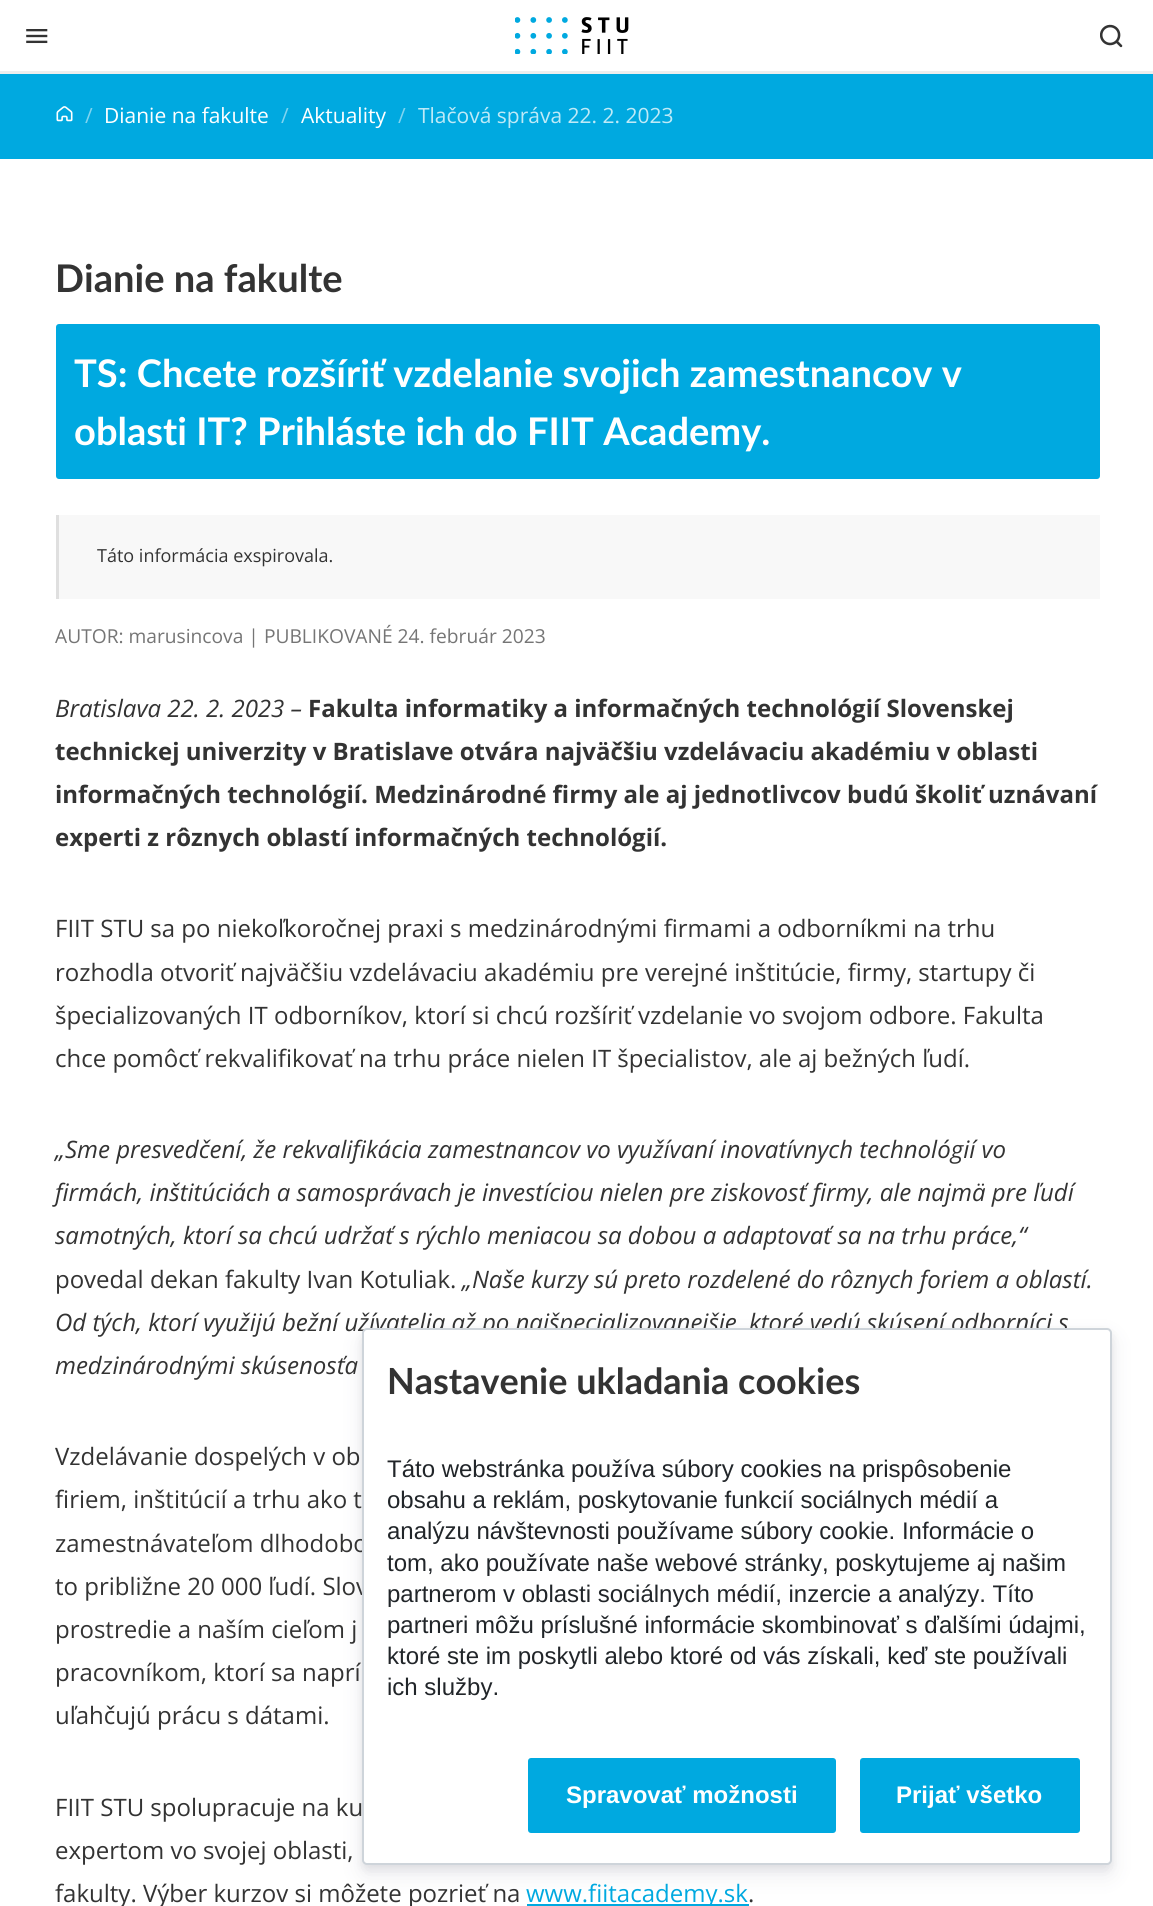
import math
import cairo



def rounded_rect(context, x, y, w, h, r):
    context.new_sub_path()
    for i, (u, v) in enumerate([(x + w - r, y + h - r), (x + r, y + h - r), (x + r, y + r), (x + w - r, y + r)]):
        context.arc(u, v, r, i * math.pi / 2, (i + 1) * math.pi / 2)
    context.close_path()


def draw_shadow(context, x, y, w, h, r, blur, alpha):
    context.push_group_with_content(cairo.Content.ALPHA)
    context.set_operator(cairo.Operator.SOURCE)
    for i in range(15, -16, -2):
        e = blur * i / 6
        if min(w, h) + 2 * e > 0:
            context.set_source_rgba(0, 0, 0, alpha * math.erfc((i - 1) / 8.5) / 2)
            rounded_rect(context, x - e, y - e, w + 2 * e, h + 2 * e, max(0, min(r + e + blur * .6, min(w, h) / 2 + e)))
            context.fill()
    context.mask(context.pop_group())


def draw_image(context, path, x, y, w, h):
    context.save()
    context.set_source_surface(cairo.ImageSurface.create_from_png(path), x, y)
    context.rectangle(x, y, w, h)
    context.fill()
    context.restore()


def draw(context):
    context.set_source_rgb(238 / 255, 238 / 255, 238 / 255)
    context.paint()
    context.set_source_rgb(1, 1, 1)
    context.rectangle(0, 0, 1153, 71)
    context.fill()
    draw_image(context, "images/1.png", 26, 29, 22, 15)
    draw_image(context, "images/2.png", 515, 17, 114, 37)
    draw_image(context, "images/3.png", 1100, 24, 23, 24)
    context.set_source_rgb(0, 169 / 255, 224 / 255)
    context.rectangle(0, 74, 1153, 85)
    context.fill()
    draw_image(context, "images/4.png", 56, 106, 17, 16)
    context.set_source_rgb(1, 1, 1)
    context.rectangle(0, 159, 1153, 1747)
    context.fill()
    context.set_source_rgb(0, 169 / 255, 224 / 255)
    rounded_rect(context, 57, 325, 1042, 153, 2)
    context.fill_preserve()
    context.stroke()
    context.set_source_rgb(248 / 255, 248 / 255, 248 / 255)
    context.rectangle(59, 515, 1041, 84)
    context.fill()
    context.set_source_rgb(223 / 255, 223 / 255, 223 / 255)
    context.rectangle(56, 515, 3, 84)
    context.fill()
    context.set_source_rgb(0, 169 / 255, 224 / 255)
    context.rectangle(527, 1904, 222, 2)
    context.fill()
    context.set_source_rgb(0, 0, 0)
    draw_shadow(context, 362, 1332, 750, 537, 5, 4.5, 0.07)
    context.set_source_rgb(50 / 255, 50 / 255, 93 / 255)
    draw_shadow(context, 362, 1338, 750, 537, 5, 10.5, 0.1)
    context.select_font_face("Open Sans")
    context.set_font_size(21)
    context.set_source_rgb(128 / 255, 212 / 255, 240 / 255)
    context.move_to(85, 123)
    context.show_text("/")
    context.set_source_rgb(1, 1, 1)
    context.move_to(104, 123)
    context.show_text("Dianie na fakulte")
    context.set_source_rgb(128 / 255, 212 / 255, 240 / 255)
    context.move_to(281, 123)
    context.show_text("/")
    context.set_source_rgb(1, 1, 1)
    context.move_to(301, 123)
    context.show_text("Aktuality")
    context.set_source_rgb(128 / 255, 212 / 255, 240 / 255)
    context.move_to(398, 123)
    context.show_text("/")
    context.set_source_rgb(191 / 255, 234 / 255, 247 / 255)
    context.move_to(418, 123)
    context.show_text("Tlačová správa 22. 2. 2023")
    context.select_font_face("Lato", cairo.FontSlant.NORMAL, cairo.FontWeight.BOLD)
    context.set_font_size(38.1)
    context.set_source_rgb(51 / 255, 51 / 255, 51 / 255)
    context.move_to(55, 292)
    context.show_text("Dianie na fakulte")
    context.set_source_rgb(1, 1, 1)
    context.move_to(74, 387)
    context.show_text("TS: Chcete rozšíriť vzdelanie svojich zamestnancov v")
    context.move_to(74, 445)
    context.show_text("oblasti IT? Prihláste ich do FIIT Academy.")
    context.select_font_face("Open Sans")
    context.set_font_size(18)
    context.set_source_rgb(51 / 255, 51 / 255, 51 / 255)
    context.move_to(97, 562)
    context.show_text("Táto informácia exspirovala.")
    context.set_font_size(19.2)
    context.set_source_rgb(117 / 255, 117 / 255, 117 / 255)
    context.move_to(55, 643)
    context.show_text("AUTOR: marusincova | PUBLIKOVANÉ 24. február 2023")
    context.select_font_face("Open Sans", cairo.FontSlant.ITALIC)
    context.set_font_size(24)
    context.set_source_rgb(51 / 255, 51 / 255, 51 / 255)
    context.move_to(55, 717)
    context.show_text("Bratislava 22. 2. 2023 –")
    context.select_font_face("Open Sans", cairo.FontSlant.NORMAL, cairo.FontWeight.BOLD)
    context.move_to(308, 717)
    context.show_text("Fakulta informatiky a informačných technológií Slovenskej")
    context.move_to(55, 760)
    context.show_text("technickej univerzity v Bratislave otvára najväčšiu vzdelávaciu akadémiu v oblasti")
    context.move_to(55, 803)
    context.show_text("informačných technológií. Medzinárodné firmy ale aj jednotlivcov budú školiť uznávaní")
    context.move_to(55, 846)
    context.show_text("experti z rôznych oblastí informačných technológií.")
    context.select_font_face("Open Sans")
    context.move_to(55, 937)
    context.show_text("FIIT STU sa po niekoľkoročnej praxi s medzinárodnými firmami a odborníkmi na trhu")
    context.move_to(55, 981)
    context.show_text("rozhodla otvoriť najväčšiu vzdelávaciu akadémiu pre verejné inštitúcie, firmy, startupy či")
    context.move_to(55, 1024)
    context.show_text("špecializovaných IT odborníkov, ktorí si chcú rozšíriť vzdelanie vo svojom odbore. Fakulta")
    context.move_to(55, 1067)
    context.show_text("chce pomôcť rekvalifikovať na trhu práce nielen IT špecialistov, ale aj bežných ľudí.")
    context.select_font_face("Open Sans", cairo.FontSlant.ITALIC)
    context.move_to(55, 1158)
    context.show_text("„Sme presvedčení, že rekvalifikácia zamestnancov vo využívaní inovatívnych technológií vo")
    context.move_to(55, 1201)
    context.show_text("firmách, inštitúciách a samosprávach je investíciou nielen pre ziskovosť firmy, ale najmä pre ľudí")
    context.move_to(55, 1244)
    context.show_text("samotných, ktorí sa chcú udržať s rýchlo meniacou sa dobou a adaptovať sa na trhu práce,“")
    context.select_font_face("Open Sans")
    context.move_to(55, 1288)
    context.show_text("povedal dekan fakulty Ivan Kotuliak.")
    context.select_font_face("Open Sans", cairo.FontSlant.ITALIC)
    context.move_to(462, 1288)
    context.show_text("„Naše kurzy sú preto rozdelené do rôznych foriem a oblastí.")
    context.move_to(55, 1331)
    context.show_text("Od tých, ktorí využijú bežní užívatelia až po najšpecializovanejšie, ktoré vedú skúsení odborníci s")
    context.move_to(55, 1374)
    context.show_text("medzinárodnými skúsenosťa")
    context.select_font_face("Open Sans")
    context.move_to(55, 1465)
    context.show_text("Vzdelávanie dospelých v ob")
    context.move_to(55, 1508)
    context.show_text("firiem, inštitúcií a trhu ako t")
    context.move_to(55, 1552)
    context.show_text("zamestnávateľom dlhodobo")
    context.move_to(55, 1595)
    context.show_text("to približne 20 000 ľudí. Slov")
    context.move_to(55, 1638)
    context.show_text("prostredie a naším cieľom j")
    context.move_to(55, 1681)
    context.show_text("pracovníkom, ktorí sa naprí")
    context.move_to(55, 1724)
    context.show_text("uľahčujú prácu s dátami.")
    context.move_to(55, 1816)
    context.show_text("FIIT STU spolupracuje na ku")
    context.move_to(55, 1859)
    context.show_text("expertom vo svojej oblasti,")
    context.move_to(55, 1902)
    context.show_text("fakulty. Výber kurzov si môžete pozrieť na")
    context.set_source_rgb(0, 169 / 255, 224 / 255)
    context.move_to(526, 1902)
    context.show_text("www.fiitacademy.sk")
    context.set_source_rgb(51 / 255, 51 / 255, 51 / 255)
    context.move_to(748, 1902)
    context.show_text(".")
    context.set_source_rgb(1, 1, 1)
    rounded_rect(context, 363, 1329, 748, 535, 4)
    context.fill_preserve()
    context.set_source_rgb(206 / 255, 212 / 255, 218 / 255)
    context.stroke()
    context.select_font_face("Lato", cairo.FontSlant.NORMAL, cairo.FontWeight.BOLD)
    context.set_font_size(36)
    context.set_source_rgb(51 / 255, 51 / 255, 51 / 255)
    context.move_to(387, 1394)
    context.show_text("Nastavenie ukladania cookies")
    context.select_font_face("Liberation Sans")
    context.set_font_size(24)
    context.set_source_rgb(33 / 255, 37 / 255, 41 / 255)
    context.move_to(387, 1477)
    context.show_text("Táto webstránka používa súbory cookies na prispôsobenie")
    context.move_to(387, 1508)
    context.show_text("obsahu a reklám, poskytovanie funkcií sociálnych médií a")
    context.move_to(387, 1539)
    context.show_text("analýzu návštevnosti používame súbory cookie. Informácie o")
    context.move_to(387, 1571)
    context.show_text("tom, ako používate naše webové stránky, poskytujeme aj našim")
    context.move_to(387, 1602)
    context.show_text("partnerom v oblasti sociálnych médií, inzercie a analýzy. Títo")
    context.move_to(387, 1633)
    context.show_text("partneri môžu príslušné informácie skombinovať s ďalšími údajmi,")
    context.move_to(387, 1664)
    context.show_text("ktoré ste im poskytli alebo ktoré od vás získali, keď ste používali")
    context.move_to(387, 1695)
    context.show_text("ich služby.")
    context.set_source_rgb(0, 169 / 255, 224 / 255)
    rounded_rect(context, 529, 1759, 306, 73, 2)
    context.fill_preserve()
    context.stroke()
    context.select_font_face("Liberation Sans", cairo.FontSlant.NORMAL, cairo.FontWeight.BOLD)
    context.set_source_rgb(1, 1, 1)
    context.move_to(566, 1803)
    context.show_text("Spravovať možnosti")
    context.set_source_rgb(0, 169 / 255, 224 / 255)
    rounded_rect(context, 861, 1759, 218, 73, 2)
    context.fill_preserve()
    context.stroke()
    context.set_source_rgb(1, 1, 1)
    context.move_to(896, 1803)
    context.show_text("Prijať všetko")


surface = cairo.ImageSurface(cairo.Format.RGB24, 1153, 1906)
context = cairo.Context(surface)
options = cairo.FontOptions()
options.set_hint_metrics(cairo.HintMetrics.OFF)
options.set_hint_style(cairo.HintStyle.NONE)
context.set_font_options(options)
context.set_miter_limit(4)
draw(context)
surface.write_to_png("out.png")
